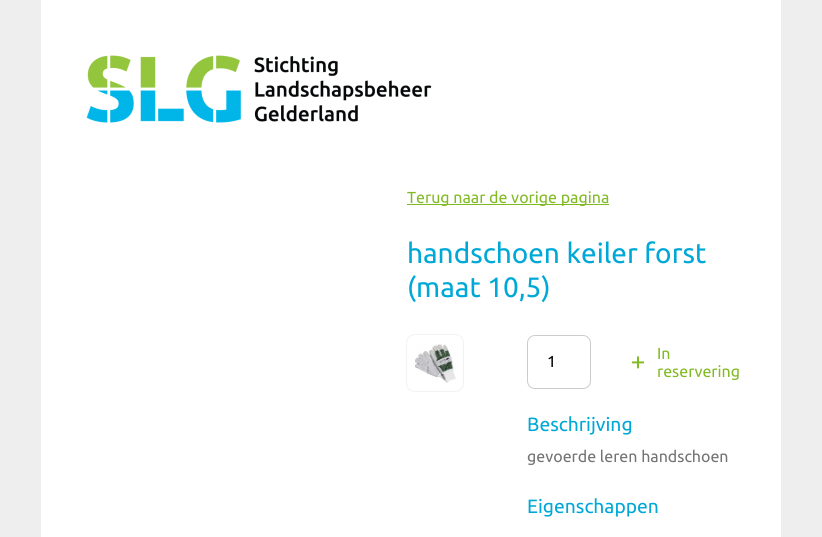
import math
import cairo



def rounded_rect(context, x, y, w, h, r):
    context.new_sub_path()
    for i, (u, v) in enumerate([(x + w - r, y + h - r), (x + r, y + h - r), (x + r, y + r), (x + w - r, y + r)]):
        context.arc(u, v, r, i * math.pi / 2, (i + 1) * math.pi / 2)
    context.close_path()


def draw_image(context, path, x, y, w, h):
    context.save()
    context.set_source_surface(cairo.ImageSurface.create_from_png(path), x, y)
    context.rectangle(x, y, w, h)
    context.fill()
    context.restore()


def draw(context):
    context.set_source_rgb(238 / 255, 238 / 255, 238 / 255)
    context.paint()
    context.set_source_rgb(1, 1, 1)
    context.rectangle(41, 0, 740, 537)
    context.fill()
    draw_image(context, "images/1.png", 86, 55, 346, 68)
    context.set_source_rgb(130 / 255, 186 / 255, 38 / 255)
    context.rectangle(407, 204, 202, 1)
    context.fill()
    rounded_rect(context, 406.5, 334.5, 57, 57, 8.5)
    context.set_source_rgb(242 / 255, 242 / 255, 242 / 255)
    context.set_line_width(1)
    context.stroke()
    draw_image(context, "images/2.png", 415, 344, 41, 39)
    rounded_rect(context, 527.5, 335.5, 63, 53, 7.5)
    context.set_source_rgb(204 / 255, 204 / 255, 204 / 255)
    context.stroke()
    draw_image(context, "images/3.png", 632, 356, 12, 13)
    context.select_font_face("Ubuntu")
    context.set_font_size(16)
    context.set_source_rgb(130 / 255, 186 / 255, 38 / 255)
    context.move_to(407, 203)
    context.show_text("Terug naar de vorige pagina")
    context.set_font_size(28)
    context.set_source_rgb(0, 168 / 255, 215 / 255)
    context.move_to(407, 263)
    context.show_text("handschoen keiler forst")
    context.move_to(407, 297)
    context.show_text("(maat 10,5)")
    context.set_font_size(16)
    context.set_source_rgb(0, 0, 0)
    context.move_to(547, 367)
    context.show_text("1")
    context.set_source_rgb(130 / 255, 186 / 255, 38 / 255)
    context.move_to(657, 359)
    context.show_text("In")
    context.move_to(657, 377)
    context.show_text("reservering")
    context.set_font_size(19.25)
    context.set_source_rgb(0, 168 / 255, 215 / 255)
    context.move_to(527, 431)
    context.show_text("Beschrijving")
    context.set_font_size(16)
    context.set_source_rgb(115 / 255, 115 / 255, 115 / 255)
    context.move_to(527, 462)
    context.show_text("gevoerde leren handschoen")
    context.set_font_size(19.25)
    context.set_source_rgb(0, 168 / 255, 215 / 255)
    context.move_to(527, 513)
    context.show_text("Eigenschappen")


surface = cairo.ImageSurface(cairo.Format.RGB24, 822, 537)
context = cairo.Context(surface)
options = cairo.FontOptions()
options.set_hint_metrics(cairo.HintMetrics.OFF)
options.set_hint_style(cairo.HintStyle.NONE)
context.set_font_options(options)
context.set_miter_limit(4)
draw(context)
surface.write_to_png("out.png")
